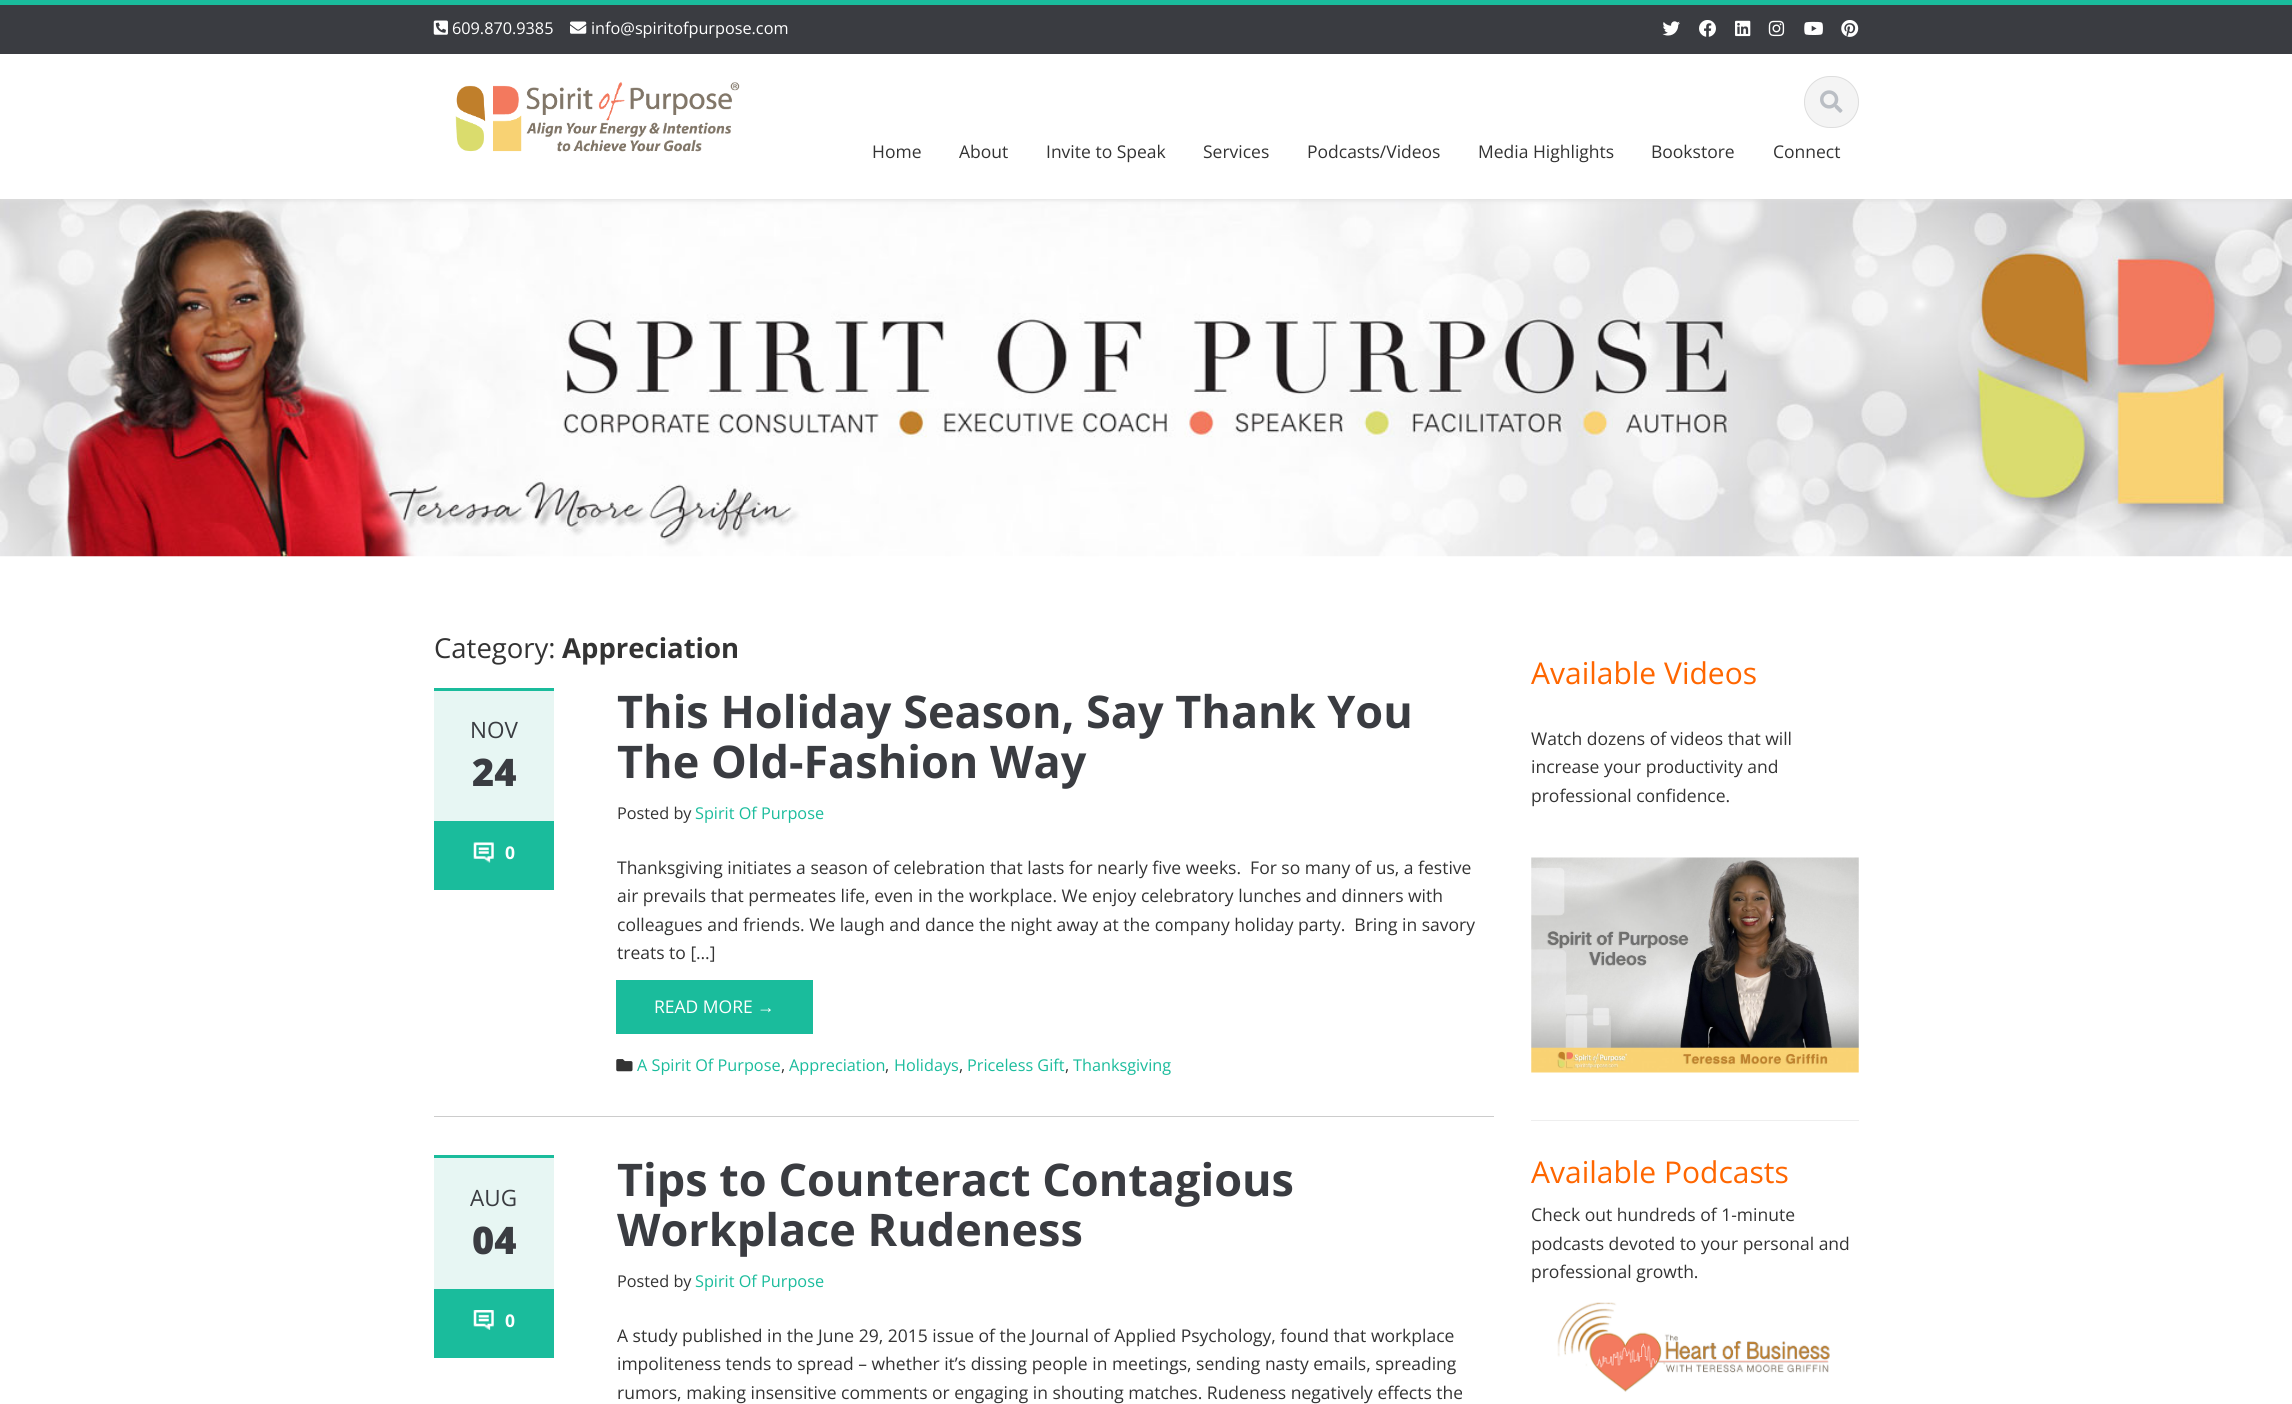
import math
import cairo



def rounded_rect(context, x, y, w, h, r):
    context.new_sub_path()
    for i, (u, v) in enumerate([(x + w - r, y + h - r), (x + r, y + h - r), (x + r, y + r), (x + w - r, y + r)]):
        context.arc(u, v, r, i * math.pi / 2, (i + 1) * math.pi / 2)
    context.close_path()


def draw_shadow(context, x, y, w, h, r, blur, alpha):
    context.push_group_with_content(cairo.Content.ALPHA)
    context.set_operator(cairo.Operator.SOURCE)
    for i in range(15, -16, -2):
        e = blur * i / 6
        if min(w, h) + 2 * e > 0:
            context.set_source_rgba(0, 0, 0, alpha * math.erfc((i - 1) / 8.5) / 2)
            rounded_rect(context, x - e, y - e, w + 2 * e, h + 2 * e, max(0, min(r + e + blur * .6, min(w, h) / 2 + e)))
            context.fill()
    context.mask(context.pop_group())


def draw_image(context, path, x, y, w, h):
    context.save()
    context.set_source_surface(cairo.ImageSurface.create_from_png(path), x, y)
    context.rectangle(x, y, w, h)
    context.fill()
    context.restore()


def draw(context):
    context.set_source_rgb(1, 1, 1)
    context.paint()
    draw_image(context, "images/11.png", 0, 199, 2292, 358)
    context.set_source_rgb(221 / 255, 221 / 255, 221 / 255)
    draw_shadow(context, 1, 1, 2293, 199, 0, 2.5, 1)
    context.set_source_rgb(58 / 255, 60 / 255, 65 / 255)
    context.rectangle(0, 5, 2292, 49)
    context.fill()
    context.set_source_rgb(26 / 255, 188 / 255, 156 / 255)
    context.rectangle(0, 0, 2292, 5)
    context.fill()
    draw_image(context, "images/1.png", 433, 20, 15, 15)
    draw_image(context, "images/2.png", 570, 21, 17, 13)
    draw_image(context, "images/3.png", 1662, 21, 18, 15)
    draw_image(context, "images/4.png", 1699, 20, 17, 17)
    draw_image(context, "images/5.png", 1735, 20, 16, 17)
    draw_image(context, "images/6.png", 1768, 20, 17, 17)
    draw_image(context, "images/7.png", 1804, 21, 19, 14)
    draw_image(context, "images/8.png", 1841, 20, 18, 17)
    context.set_source_rgb(1, 1, 1)
    context.rectangle(0, 54, 2292, 145)
    context.fill()
    draw_image(context, "images/9.png", 455, 82, 285, 70)
    context.set_source_rgb(244 / 255, 244 / 255, 244 / 255)
    rounded_rect(context, 1804.5, 76.5, 54, 51, 25.5)
    context.fill_preserve()
    context.set_source_rgb(221 / 255, 221 / 255, 221 / 255)
    context.set_line_width(1)
    context.stroke()
    draw_image(context, "images/10.png", 1820, 90, 23, 23)
    context.set_source_rgb(204 / 255, 204 / 255, 204 / 255)
    context.rectangle(434, 1116, 1060, 1)
    context.fill()
    context.set_source_rgb(231 / 255, 246 / 255, 243 / 255)
    context.rectangle(434, 691, 120, 130)
    context.fill()
    context.set_source_rgb(26 / 255, 188 / 255, 156 / 255)
    context.rectangle(434, 688, 120, 3)
    context.fill()
    context.rectangle(434, 821, 120, 69)
    context.fill()
    draw_image(context, "images/12.png", 473, 842, 21, 21)
    context.rectangle(616, 980, 197, 54)
    context.fill()
    draw_image(context, "images/13.png", 616, 1059, 17, 13)
    context.set_source_rgb(231 / 255, 246 / 255, 243 / 255)
    context.rectangle(434, 1158, 120, 131)
    context.fill()
    context.set_source_rgb(26 / 255, 188 / 255, 156 / 255)
    context.rectangle(434, 1155, 120, 3)
    context.fill()
    context.rectangle(434, 1289, 120, 69)
    context.fill()
    draw_image(context, "images/14.png", 473, 1310, 21, 20)
    draw_image(context, "images/15.png", 1531, 857, 328, 216)
    context.set_source_rgb(238 / 255, 238 / 255, 238 / 255)
    context.rectangle(1531, 1120, 328, 1)
    context.fill()
    draw_image(context, "images/16.png", 1557, 1302, 273, 90)
    context.select_font_face("Open Sans")
    context.set_font_size(16.25)
    context.set_source_rgb(1, 1, 1)
    context.move_to(452, 34)
    context.show_text("609.870.9385")
    context.move_to(591, 34)
    context.show_text("info@spiritofpurpose.com")
    context.set_font_size(17.5)
    context.set_source_rgb(51 / 255, 51 / 255, 51 / 255)
    context.move_to(872, 158)
    context.show_text("Home")
    context.move_to(959, 158)
    context.show_text("About")
    context.move_to(1046, 158)
    context.show_text("Invite to Speak")
    context.move_to(1203, 158)
    context.show_text("Services")
    context.move_to(1307, 158)
    context.show_text("Podcasts/Videos")
    context.move_to(1478, 158)
    context.show_text("Media Highlights")
    context.move_to(1651, 158)
    context.show_text("Bookstore")
    context.move_to(1773, 158)
    context.show_text("Connect")
    context.set_font_size(27.5)
    context.move_to(434, 658)
    context.show_text("Category:")
    context.select_font_face("Open Sans", cairo.FontSlant.NORMAL, cairo.FontWeight.BOLD)
    context.move_to(562, 658)
    context.show_text("Appreciation")
    context.select_font_face("Open Sans")
    context.set_font_size(22.5)
    context.set_source_rgb(58 / 255, 60 / 255, 65 / 255)
    context.move_to(470, 738)
    context.show_text("NOV")
    context.select_font_face("Open Sans ExtraBold")
    context.set_font_size(38)
    context.move_to(472, 786)
    context.show_text("24")
    context.select_font_face("Open Sans", cairo.FontSlant.NORMAL, cairo.FontWeight.BOLD)
    context.set_font_size(17.5)
    context.set_source_rgb(1, 1, 1)
    context.move_to(505, 859)
    context.show_text("0")
    context.set_font_size(45)
    context.set_source_rgb(58 / 255, 60 / 255, 65 / 255)
    context.move_to(617, 728)
    context.show_text("This Holiday Season, Say Thank You")
    context.move_to(617, 778)
    context.show_text("The Old-Fashion Way")
    context.select_font_face("Open Sans")
    context.set_font_size(16.25)
    context.set_source_rgb(51 / 255, 51 / 255, 51 / 255)
    context.move_to(617, 819)
    context.show_text("Posted by")
    context.set_source_rgb(26 / 255, 188 / 255, 156 / 255)
    context.move_to(695, 819)
    context.show_text("Spirit Of Purpose")
    context.set_font_size(17.5)
    context.set_source_rgb(51 / 255, 51 / 255, 51 / 255)
    context.move_to(617, 874)
    context.show_text("Thanksgiving initiates a season of celebration that lasts for nearly five weeks.  For so many of us, a festive")
    context.move_to(617, 902)
    context.show_text("air prevails that permeates life, even in the workplace. We enjoy celebratory lunches and dinners with")
    context.move_to(617, 931)
    context.show_text("colleagues and friends. We laugh and dance the night away at the company holiday party.  Bring in savory")
    context.move_to(617, 959)
    context.show_text("treats to […]")
    context.set_source_rgb(1, 1, 1)
    context.move_to(654, 1013)
    context.show_text("READ MORE")
    context.select_font_face("Liberation Sans")
    context.move_to(757, 1013)
    context.show_text("→")
    context.select_font_face("Open Sans")
    context.set_font_size(16.25)
    context.set_source_rgb(26 / 255, 188 / 255, 156 / 255)
    context.move_to(637, 1071)
    context.show_text("A Spirit Of Purpose")
    context.set_source_rgb(51 / 255, 51 / 255, 51 / 255)
    context.move_to(781, 1071)
    context.show_text(",")
    context.set_source_rgb(26 / 255, 188 / 255, 156 / 255)
    context.move_to(789, 1071)
    context.show_text("Appreciation")
    context.set_source_rgb(51 / 255, 51 / 255, 51 / 255)
    context.move_to(885, 1071)
    context.show_text(",")
    context.set_source_rgb(26 / 255, 188 / 255, 156 / 255)
    context.move_to(894, 1071)
    context.show_text("Holidays")
    context.set_source_rgb(51 / 255, 51 / 255, 51 / 255)
    context.move_to(959, 1071)
    context.show_text(",")
    context.set_source_rgb(26 / 255, 188 / 255, 156 / 255)
    context.move_to(967, 1071)
    context.show_text("Priceless Gift")
    context.set_source_rgb(51 / 255, 51 / 255, 51 / 255)
    context.move_to(1065, 1071)
    context.show_text(",")
    context.set_source_rgb(26 / 255, 188 / 255, 156 / 255)
    context.move_to(1073, 1071)
    context.show_text("Thanksgiving")
    context.set_font_size(22.5)
    context.set_source_rgb(58 / 255, 60 / 255, 65 / 255)
    context.move_to(470, 1206)
    context.show_text("AUG")
    context.select_font_face("Open Sans ExtraBold")
    context.set_font_size(38)
    context.move_to(472, 1254)
    context.show_text("04")
    context.select_font_face("Open Sans", cairo.FontSlant.NORMAL, cairo.FontWeight.BOLD)
    context.set_font_size(17.5)
    context.set_source_rgb(1, 1, 1)
    context.move_to(505, 1327)
    context.show_text("0")
    context.set_font_size(45)
    context.set_source_rgb(58 / 255, 60 / 255, 65 / 255)
    context.move_to(617, 1196)
    context.show_text("Tips to Counteract Contagious")
    context.move_to(617, 1246)
    context.show_text("Workplace Rudeness")
    context.select_font_face("Open Sans")
    context.set_font_size(16.25)
    context.set_source_rgb(51 / 255, 51 / 255, 51 / 255)
    context.move_to(617, 1287)
    context.show_text("Posted by")
    context.set_source_rgb(26 / 255, 188 / 255, 156 / 255)
    context.move_to(695, 1287)
    context.show_text("Spirit Of Purpose")
    context.set_font_size(17.5)
    context.set_source_rgb(51 / 255, 51 / 255, 51 / 255)
    context.move_to(617, 1342)
    context.show_text("A study published in the June 29, 2015 issue of the Journal of Applied Psychology, found that workplace")
    context.move_to(617, 1370)
    context.show_text("impoliteness tends to spread – whether it’s dissing people in meetings, sending nasty emails, spreading")
    context.move_to(617, 1399)
    context.show_text("rumors, making insensitive comments or engaging in shouting matches. Rudeness negatively effects the")
    context.set_font_size(30)
    context.set_source_rgb(1, 102 / 255, 0)
    context.move_to(1531, 684)
    context.show_text("Available Videos")
    context.set_font_size(17.5)
    context.set_source_rgb(51 / 255, 51 / 255, 51 / 255)
    context.move_to(1531, 745)
    context.show_text("Watch dozens of videos that will")
    context.move_to(1531, 773)
    context.show_text("increase your productivity and")
    context.move_to(1531, 802)
    context.show_text("professional confidence.")
    context.set_font_size(30)
    context.set_source_rgb(1, 102 / 255, 0)
    context.move_to(1531, 1183)
    context.show_text("Available Podcasts")
    context.set_font_size(17.5)
    context.set_source_rgb(51 / 255, 51 / 255, 51 / 255)
    context.move_to(1531, 1221)
    context.show_text("Check out hundreds of 1-minute")
    context.move_to(1531, 1250)
    context.show_text("podcasts devoted to your personal and")
    context.move_to(1531, 1278)
    context.show_text("professional growth.")


surface = cairo.ImageSurface(cairo.Format.RGB24, 2292, 1404)
context = cairo.Context(surface)
options = cairo.FontOptions()
options.set_hint_metrics(cairo.HintMetrics.OFF)
options.set_hint_style(cairo.HintStyle.NONE)
context.set_font_options(options)
context.set_miter_limit(4)
draw(context)
surface.write_to_png("out.png")
